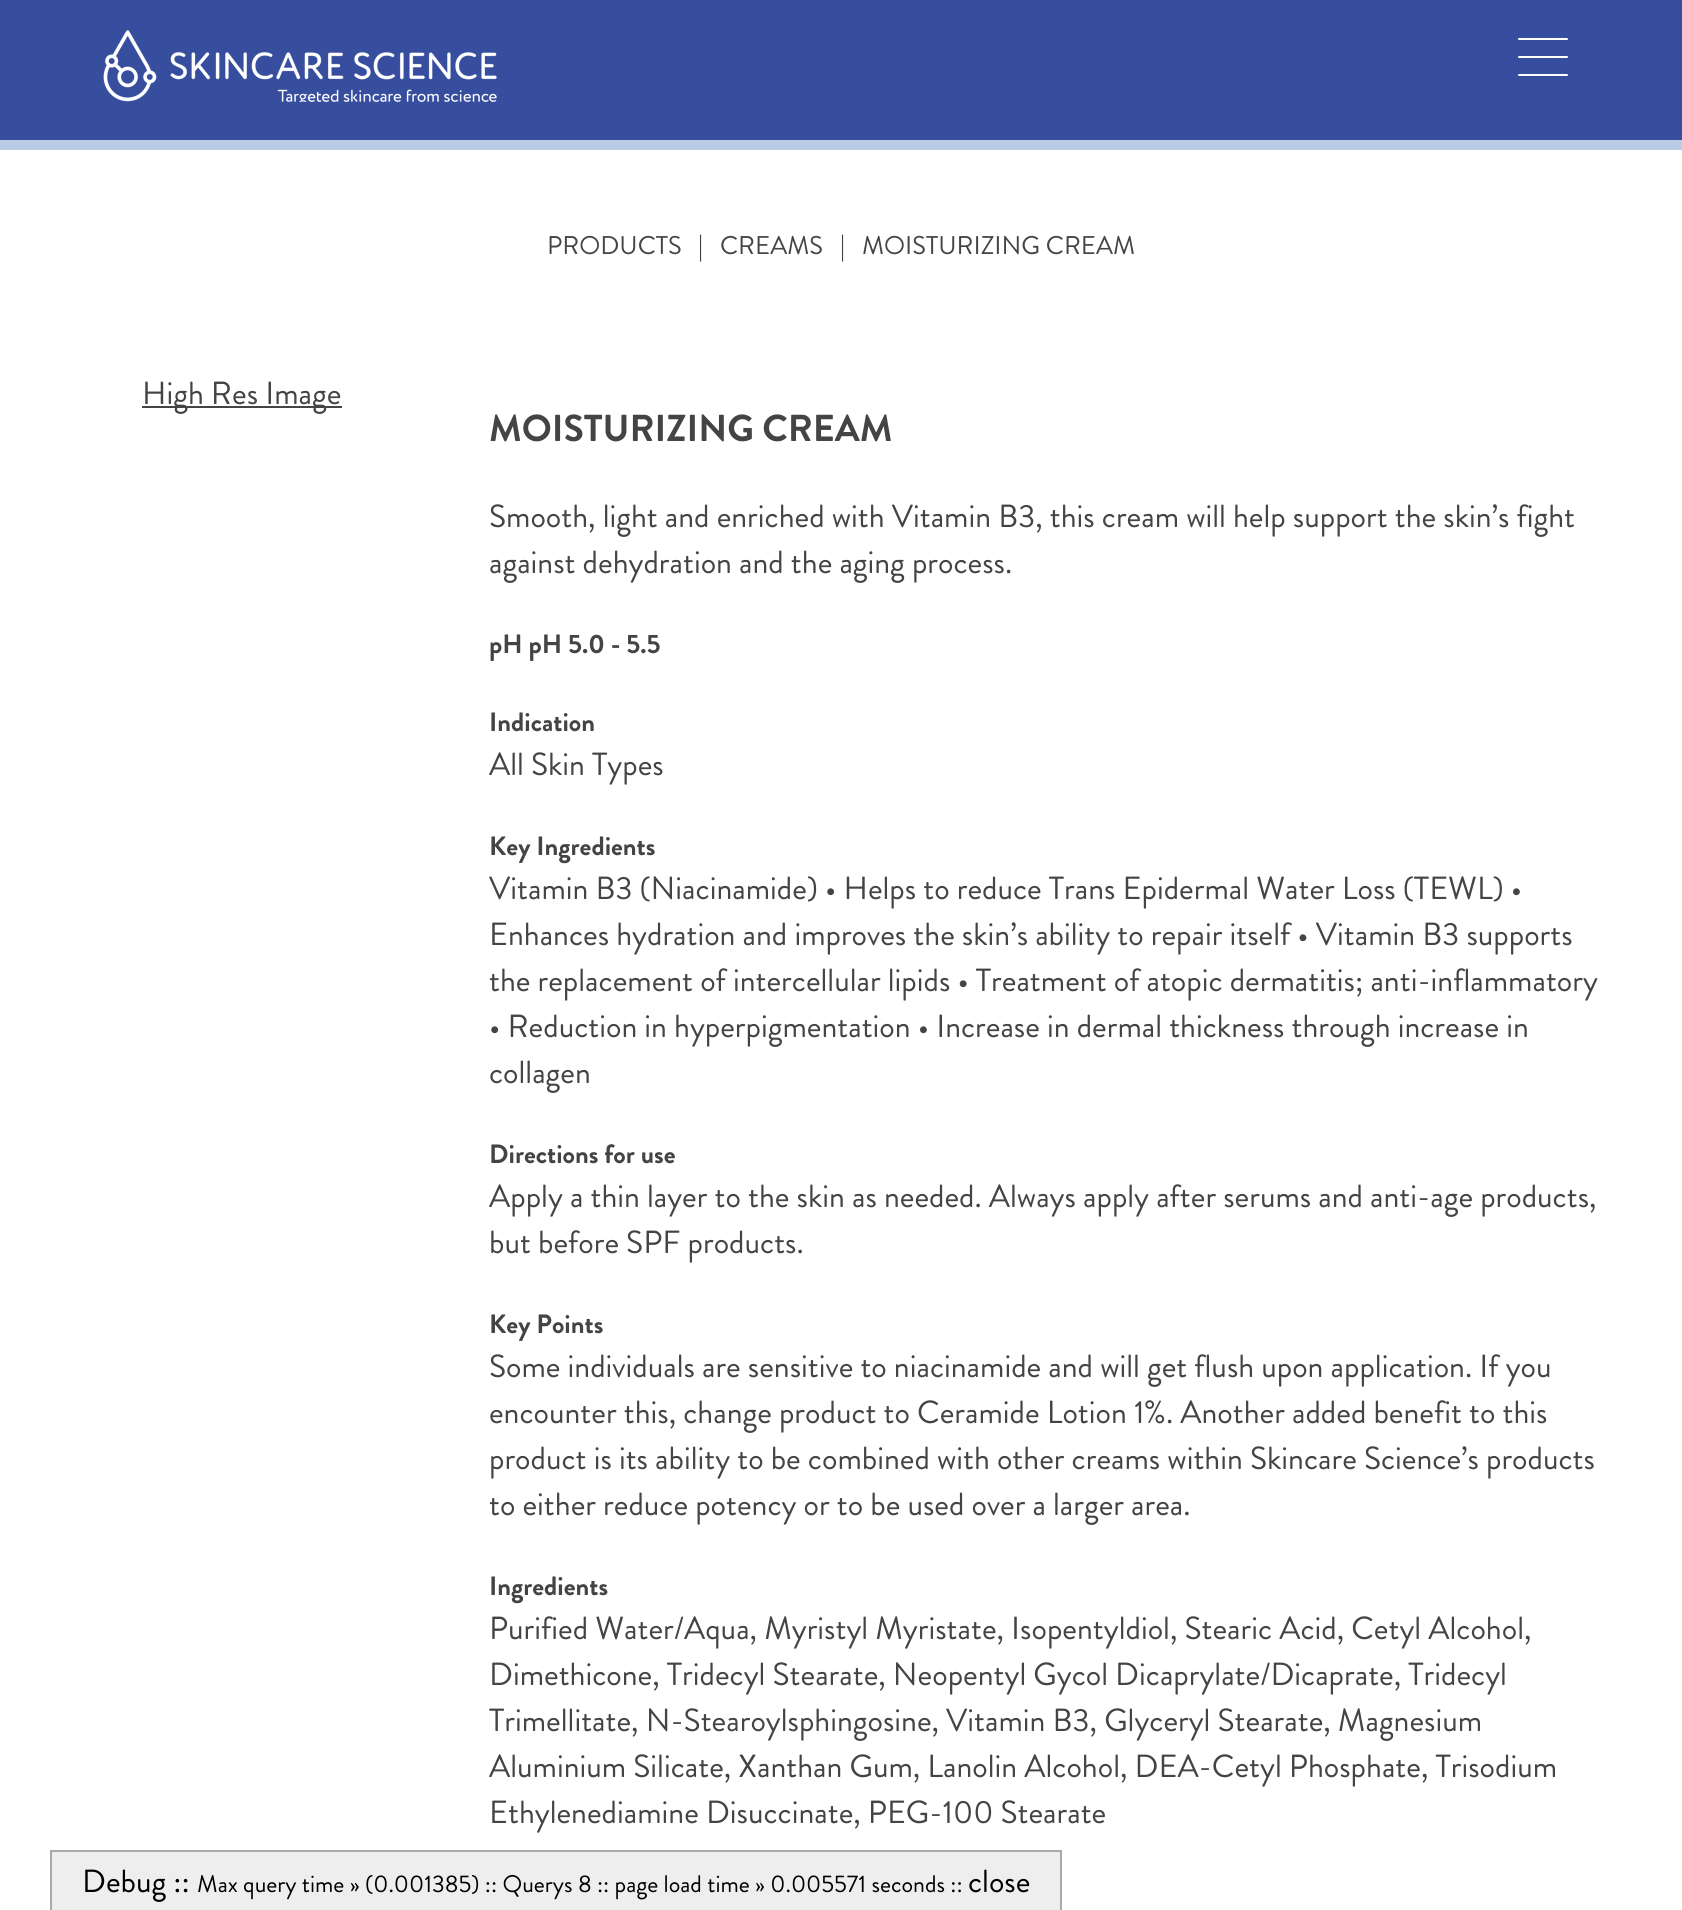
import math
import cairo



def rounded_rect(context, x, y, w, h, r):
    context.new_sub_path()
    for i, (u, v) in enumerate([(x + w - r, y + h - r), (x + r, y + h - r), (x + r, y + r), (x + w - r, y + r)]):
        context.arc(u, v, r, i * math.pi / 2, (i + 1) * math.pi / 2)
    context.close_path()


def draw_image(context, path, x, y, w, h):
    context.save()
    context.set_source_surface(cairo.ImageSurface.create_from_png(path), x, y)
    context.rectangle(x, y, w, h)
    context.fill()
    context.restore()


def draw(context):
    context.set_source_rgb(1, 1, 1)
    context.paint()
    context.set_source_rgb(55 / 255, 78 / 255, 158 / 255)
    context.rectangle(0, 0, 1682, 140)
    context.fill()
    context.set_source_rgb(186 / 255, 203 / 255, 230 / 255)
    context.rectangle(0, 140, 1682, 10)
    context.fill()
    draw_image(context, "images/1.png", 103, 30, 394, 72)
    context.set_source_rgb(1, 1, 1)
    rounded_rect(context, 1518, 38, 50, 2, 1)
    context.fill()
    rounded_rect(context, 1518, 56, 50, 2, 1)
    context.fill()
    rounded_rect(context, 1518, 74, 50, 2, 1)
    context.fill()
    context.set_source_rgb(68 / 255, 68 / 255, 68 / 255)
    context.rectangle(142, 406, 200, 2)
    context.fill()
    context.set_source_rgb(238 / 255, 238 / 255, 238 / 255)
    context.rectangle(52, 1852, 1008, 58)
    context.fill()
    context.set_source_rgb(170 / 255, 170 / 255, 170 / 255)
    context.rectangle(50, 1850, 1012, 2)
    context.fill()
    context.rectangle(1060, 1850, 2, 60)
    context.fill()
    context.rectangle(50, 1850, 2, 60)
    context.fill()
    context.select_font_face("Brandon Grotesque")
    context.set_font_size(25.6)
    context.set_source_rgb(68 / 255, 68 / 255, 68 / 255)
    context.move_to(547, 254)
    context.show_text("PRODUCTS")
    context.move_to(698, 254)
    context.show_text("|")
    context.move_to(720, 254)
    context.show_text("CREAMS")
    context.move_to(840, 254)
    context.show_text("|")
    context.move_to(862, 254)
    context.show_text("MOISTURIZING CREAM")
    context.set_font_size(32)
    context.move_to(142, 404)
    context.show_text("High Res Image")
    context.select_font_face("Brandon Grotesque", cairo.FontSlant.NORMAL, cairo.FontWeight.BOLD)
    context.set_font_size(37.5)
    context.move_to(489, 441)
    context.show_text("MOISTURIZING CREAM")
    context.select_font_face("Brandon Grotesque")
    context.set_font_size(32)
    context.move_to(489, 527)
    context.show_text("Smooth, light and enriched with Vitamin B3, this cream will help support the skin’s fight")
    context.move_to(489, 573)
    context.show_text("against dehydration and the aging process.")
    context.select_font_face("Brandon Grotesque", cairo.FontSlant.NORMAL, cairo.FontWeight.BOLD)
    context.set_font_size(26.5)
    context.move_to(489, 653)
    context.show_text("pH pH 5.0 - 5.5")
    context.move_to(489, 731)
    context.show_text("Indication")
    context.select_font_face("Brandon Grotesque")
    context.set_font_size(32)
    context.move_to(489, 775)
    context.show_text("All Skin Types")
    context.select_font_face("Brandon Grotesque", cairo.FontSlant.NORMAL, cairo.FontWeight.BOLD)
    context.set_font_size(26.5)
    context.move_to(489, 855)
    context.show_text("Key Ingredients")
    context.select_font_face("Brandon Grotesque")
    context.set_font_size(32)
    context.move_to(489, 899)
    context.show_text("Vitamin B3 (Niacinamide) • Helps to reduce Trans Epidermal Water Loss (TEWL) •")
    context.move_to(489, 945)
    context.show_text("Enhances hydration and improves the skin’s ability to repair itself • Vitamin B3 supports")
    context.move_to(489, 991)
    context.show_text("the replacement of intercellular lipids • Treatment of atopic dermatitis; anti-inflammatory")
    context.move_to(489, 1037)
    context.show_text("• Reduction in hyperpigmentation • Increase in dermal thickness through increase in")
    context.move_to(489, 1083)
    context.show_text("collagen")
    context.select_font_face("Brandon Grotesque", cairo.FontSlant.NORMAL, cairo.FontWeight.BOLD)
    context.set_font_size(26.5)
    context.move_to(489, 1163)
    context.show_text("Directions for use")
    context.select_font_face("Brandon Grotesque")
    context.set_font_size(32)
    context.move_to(489, 1207)
    context.show_text("Apply a thin layer to the skin as needed. Always apply after serums and anti-age products,")
    context.move_to(489, 1253)
    context.show_text("but before SPF products.")
    context.select_font_face("Brandon Grotesque", cairo.FontSlant.NORMAL, cairo.FontWeight.BOLD)
    context.set_font_size(26.5)
    context.move_to(489, 1333)
    context.show_text("Key Points")
    context.select_font_face("Brandon Grotesque")
    context.set_font_size(32)
    context.move_to(489, 1377)
    context.show_text("Some individuals are sensitive to niacinamide and will get flush upon application. If you")
    context.move_to(489, 1423)
    context.show_text("encounter this, change product to Ceramide Lotion 1%. Another added benefit to this")
    context.move_to(489, 1469)
    context.show_text("product is its ability to be combined with other creams within Skincare Science’s products")
    context.move_to(489, 1515)
    context.show_text("to either reduce potency or to be used over a larger area.")
    context.select_font_face("Brandon Grotesque", cairo.FontSlant.NORMAL, cairo.FontWeight.BOLD)
    context.set_font_size(26.5)
    context.move_to(489, 1595)
    context.show_text("Ingredients")
    context.select_font_face("Brandon Grotesque")
    context.set_font_size(32)
    context.move_to(489, 1639)
    context.show_text("Purified Water/Aqua, Myristyl Myristate, Isopentyldiol, Stearic Acid, Cetyl Alcohol,")
    context.move_to(489, 1685)
    context.show_text("Dimethicone, Tridecyl Stearate, Neopentyl Gycol Dicaprylate/Dicaprate, Tridecyl")
    context.move_to(489, 1731)
    context.show_text("Trimellitate, N-Stearoylsphingosine, Vitamin B3, Glyceryl Stearate, Magnesium")
    context.move_to(489, 1777)
    context.show_text("Aluminium Silicate, Xanthan Gum, Lanolin Alcohol, DEA-Cetyl Phosphate, Trisodium")
    context.move_to(489, 1823)
    context.show_text("Ethylenediamine Disuccinate, PEG-100 Stearate")
    context.set_source_rgb(0, 0, 0)
    context.move_to(82, 1892)
    context.show_text("Debug ::")
    context.set_font_size(24)
    context.move_to(197, 1892)
    context.show_text("Max query time » (0.001385) :: Querys 8 :: page load time » 0.005571 seconds ::")
    context.set_font_size(32)
    context.move_to(968, 1892)
    context.show_text("close")


surface = cairo.ImageSurface(cairo.Format.RGB24, 1682, 1910)
context = cairo.Context(surface)
options = cairo.FontOptions()
options.set_hint_metrics(cairo.HintMetrics.OFF)
options.set_hint_style(cairo.HintStyle.NONE)
context.set_font_options(options)
context.set_miter_limit(4)
draw(context)
surface.write_to_png("out.png")
